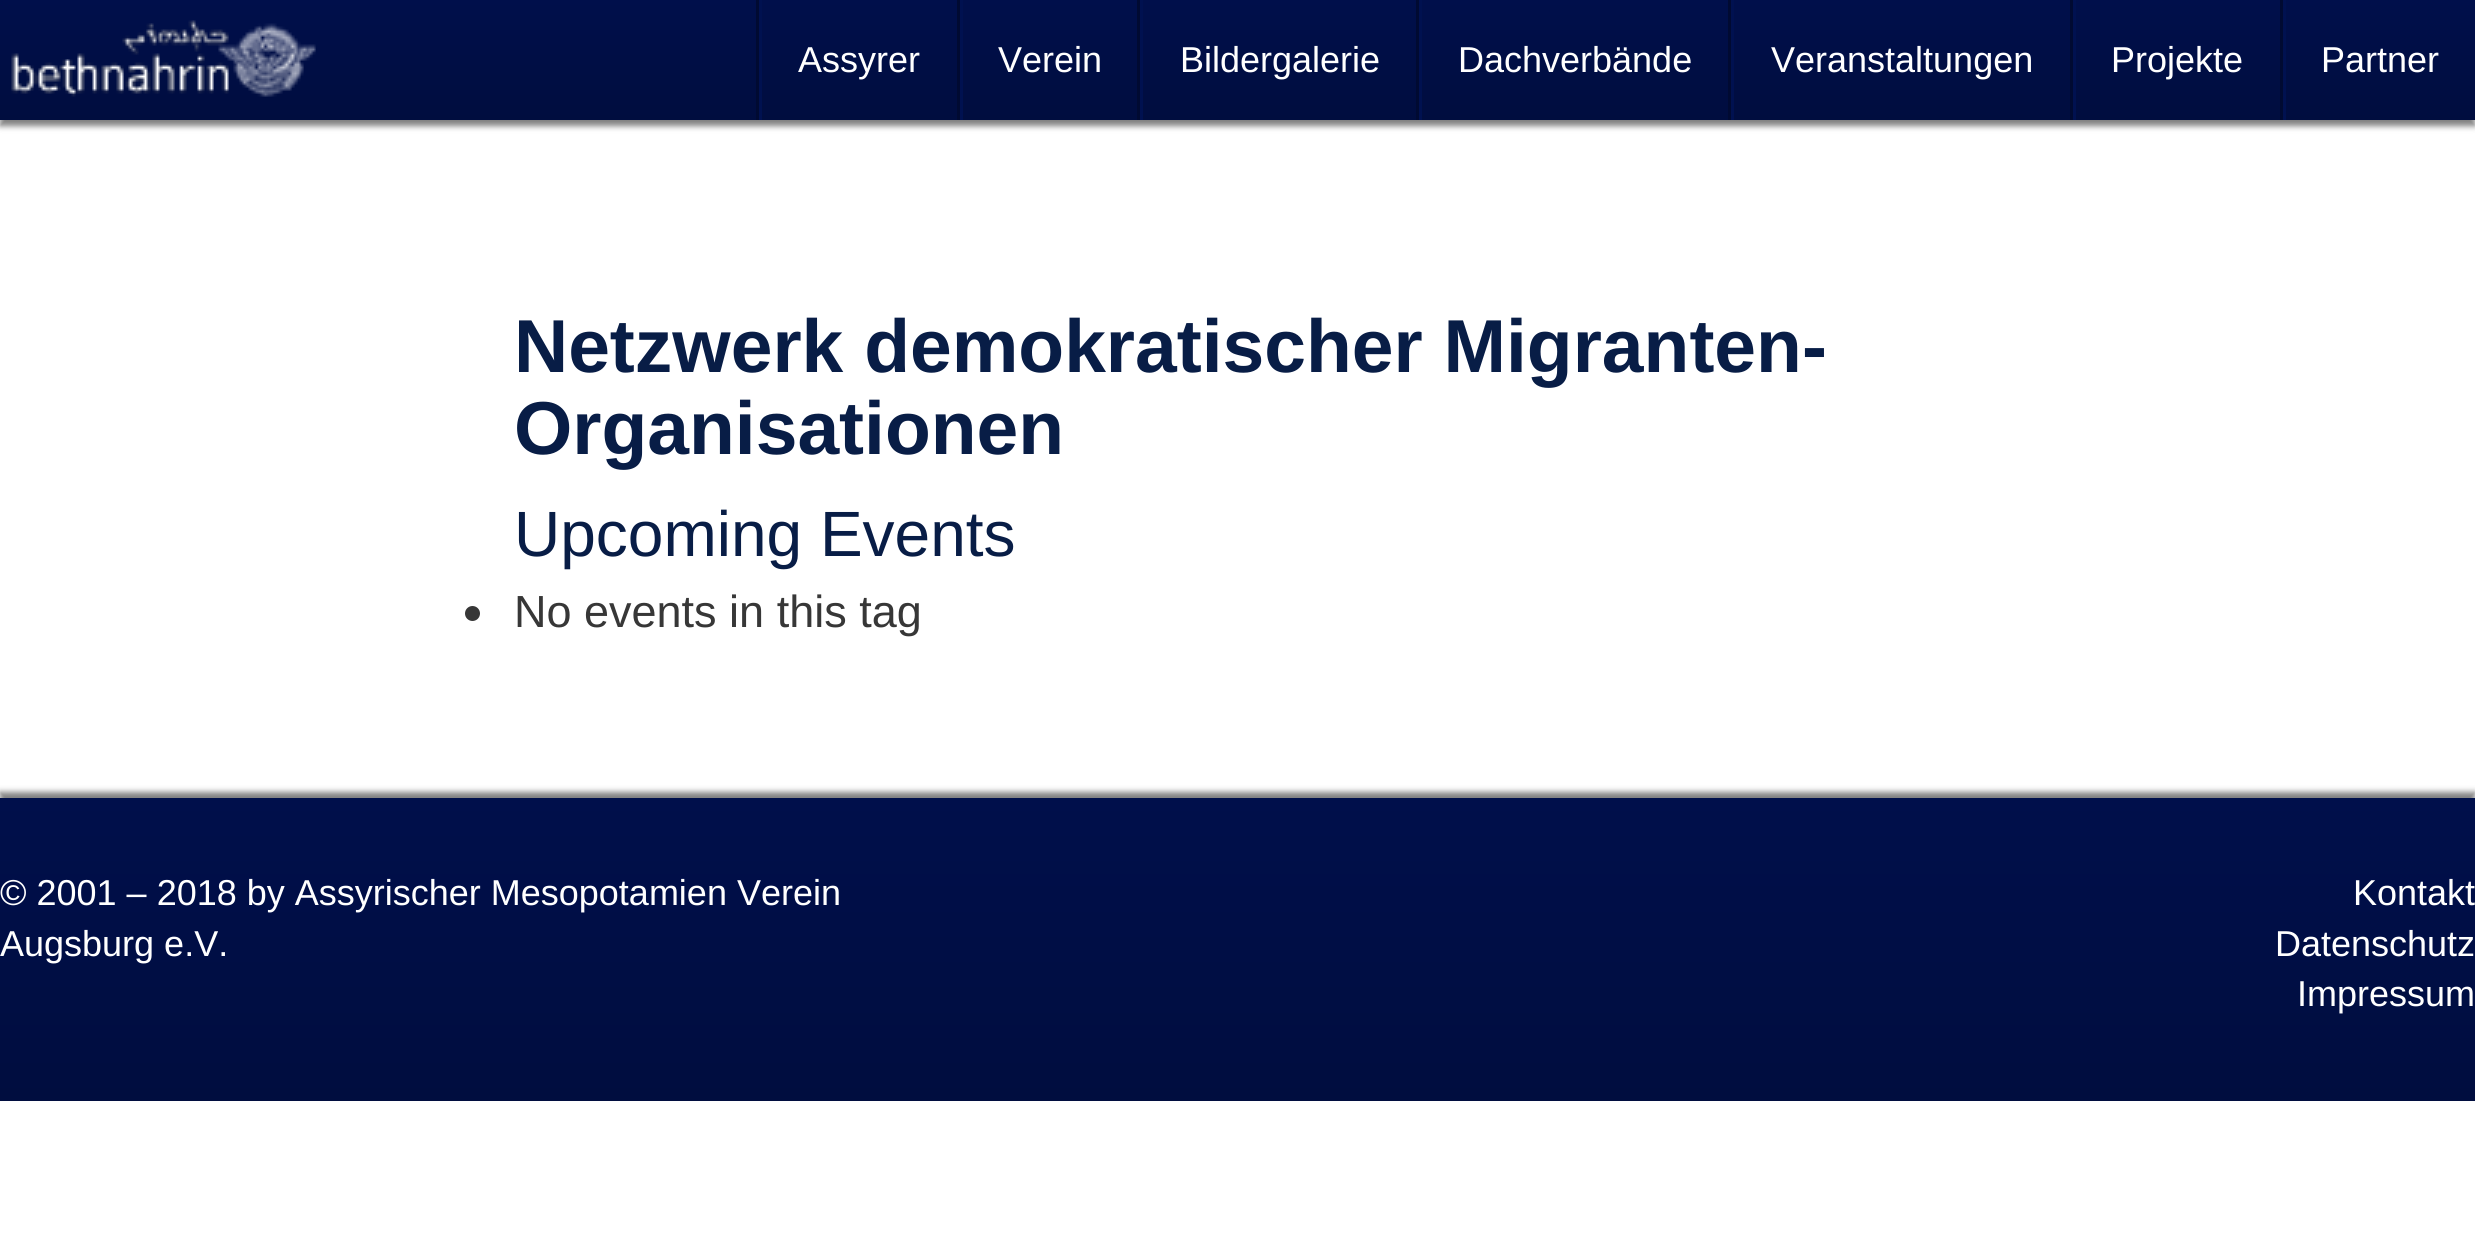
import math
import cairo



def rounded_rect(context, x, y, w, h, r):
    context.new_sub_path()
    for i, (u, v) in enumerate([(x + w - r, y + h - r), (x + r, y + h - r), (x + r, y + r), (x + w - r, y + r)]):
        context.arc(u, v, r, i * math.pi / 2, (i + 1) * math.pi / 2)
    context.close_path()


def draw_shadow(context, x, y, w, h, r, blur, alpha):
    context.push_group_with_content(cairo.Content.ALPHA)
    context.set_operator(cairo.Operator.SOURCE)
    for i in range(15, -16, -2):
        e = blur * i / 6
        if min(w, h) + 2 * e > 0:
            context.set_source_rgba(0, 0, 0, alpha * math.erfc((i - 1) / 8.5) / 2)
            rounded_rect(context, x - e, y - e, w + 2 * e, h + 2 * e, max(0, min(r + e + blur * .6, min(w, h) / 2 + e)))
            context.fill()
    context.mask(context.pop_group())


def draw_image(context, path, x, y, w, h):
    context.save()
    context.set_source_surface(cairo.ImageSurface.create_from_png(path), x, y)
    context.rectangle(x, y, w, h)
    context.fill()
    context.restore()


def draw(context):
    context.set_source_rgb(1, 1, 1)
    context.paint()
    context.set_source_rgb(0, 0, 0)
    draw_shadow(context, 0, 6, 2475, 120, 0, 3, 0.5)
    gradient = cairo.LinearGradient(1238, 0, 1238, 120)
    gradient.add_color_stop_rgba(0, 0, 15 / 255, 75 / 255, 1)
    gradient.add_color_stop_rgba(1, 0, 13 / 255, 63 / 255, 1)
    context.set_source(gradient)
    context.rectangle(0, 0, 2475, 120)
    context.fill()
    draw_image(context, "images/1.png", 11, 20, 305, 77)
    context.set_source_rgb(0, 10 / 255, 50 / 255)
    context.rectangle(756, 0, 3, 120)
    context.fill()
    context.set_source_rgb(0, 17 / 255, 80 / 255)
    context.rectangle(759, 0, 3, 120)
    context.fill()
    context.set_source_rgb(0, 10 / 255, 50 / 255)
    context.rectangle(957, 0, 3, 120)
    context.fill()
    context.set_source_rgb(0, 17 / 255, 80 / 255)
    context.rectangle(960, 0, 3, 120)
    context.fill()
    context.set_source_rgb(0, 10 / 255, 50 / 255)
    context.rectangle(1137, 0, 3, 120)
    context.fill()
    context.set_source_rgb(0, 17 / 255, 80 / 255)
    context.rectangle(1140, 0, 3, 120)
    context.fill()
    context.set_source_rgb(0, 10 / 255, 50 / 255)
    context.rectangle(1416, 0, 3, 120)
    context.fill()
    context.set_source_rgb(0, 17 / 255, 80 / 255)
    context.rectangle(1419, 0, 3, 120)
    context.fill()
    context.set_source_rgb(0, 10 / 255, 50 / 255)
    context.rectangle(1728, 0, 3, 120)
    context.fill()
    context.set_source_rgb(0, 17 / 255, 80 / 255)
    context.rectangle(1731, 0, 3, 120)
    context.fill()
    context.set_source_rgb(0, 10 / 255, 50 / 255)
    context.rectangle(2070, 0, 3, 120)
    context.fill()
    context.set_source_rgb(0, 17 / 255, 80 / 255)
    context.rectangle(2073, 0, 3, 120)
    context.fill()
    context.set_source_rgb(0, 10 / 255, 50 / 255)
    context.rectangle(2280, 0, 3, 120)
    context.fill()
    context.set_source_rgb(0, 17 / 255, 80 / 255)
    context.rectangle(2283, 0, 3, 120)
    context.fill()
    context.set_source_rgb(55 / 255, 55 / 255, 55 / 255)
    context.arc(472.5, 613.5, 7.5, 0, 2 * math.pi)
    context.fill()
    context.set_source_rgb(0, 0, 0)
    draw_shadow(context, 0, 792, 2475, 303, 0, 3, 0.5)
    gradient = cairo.LinearGradient(1238, 798, 1238, 1101)
    gradient.add_color_stop_rgba(0, 0, 15 / 255, 75 / 255, 1)
    gradient.add_color_stop_rgba(1, 0, 13 / 255, 63 / 255, 1)
    context.set_source(gradient)
    context.rectangle(0, 798, 2475, 303)
    context.fill()
    context.select_font_face("Liberation Sans")
    context.set_font_size(36)
    context.set_source_rgb(1, 1, 1)
    context.move_to(798, 72)
    context.show_text("Assyrer")
    context.move_to(998, 72)
    context.show_text("Verein")
    context.move_to(1180, 72)
    context.show_text("Bildergalerie")
    context.move_to(1458, 72)
    context.show_text("Dachverbände")
    context.move_to(1771, 72)
    context.show_text("Veranstaltungen")
    context.move_to(2111, 72)
    context.show_text("Projekte")
    context.move_to(2321, 72)
    context.show_text("Partner")
    context.select_font_face("Liberation Sans", cairo.FontSlant.NORMAL, cairo.FontWeight.BOLD)
    context.set_font_size(75)
    context.set_source_rgb(8 / 255, 29 / 255, 70 / 255)
    context.move_to(514, 372)
    context.show_text("Netzwerk demokratischer Migranten-")
    context.move_to(514, 454)
    context.show_text("Organisationen")
    context.select_font_face("Liberation Sans")
    context.set_font_size(64)
    context.move_to(514, 556)
    context.show_text("Upcoming Events")
    context.set_font_size(45)
    context.set_source_rgb(55 / 255, 55 / 255, 55 / 255)
    context.move_to(514, 627)
    context.show_text("No events in this tag")
    context.set_font_size(36)
    context.set_source_rgb(1, 1, 1)
    context.move_to(0, 905)
    context.show_text("© 2001 – 2018 by Assyrischer Mesopotamien Verein")
    context.move_to(0, 956)
    context.show_text("Augsburg e.V.")
    context.move_to(2353, 905)
    context.show_text("Kontakt")
    context.move_to(2275, 956)
    context.show_text("Datenschutz")
    context.move_to(2297, 1006)
    context.show_text("Impressum")


surface = cairo.ImageSurface(cairo.Format.RGB24, 2475, 1247)
context = cairo.Context(surface)
options = cairo.FontOptions()
options.set_hint_metrics(cairo.HintMetrics.OFF)
options.set_hint_style(cairo.HintStyle.NONE)
context.set_font_options(options)
context.set_miter_limit(4)
draw(context)
surface.write_to_png("out.png")
